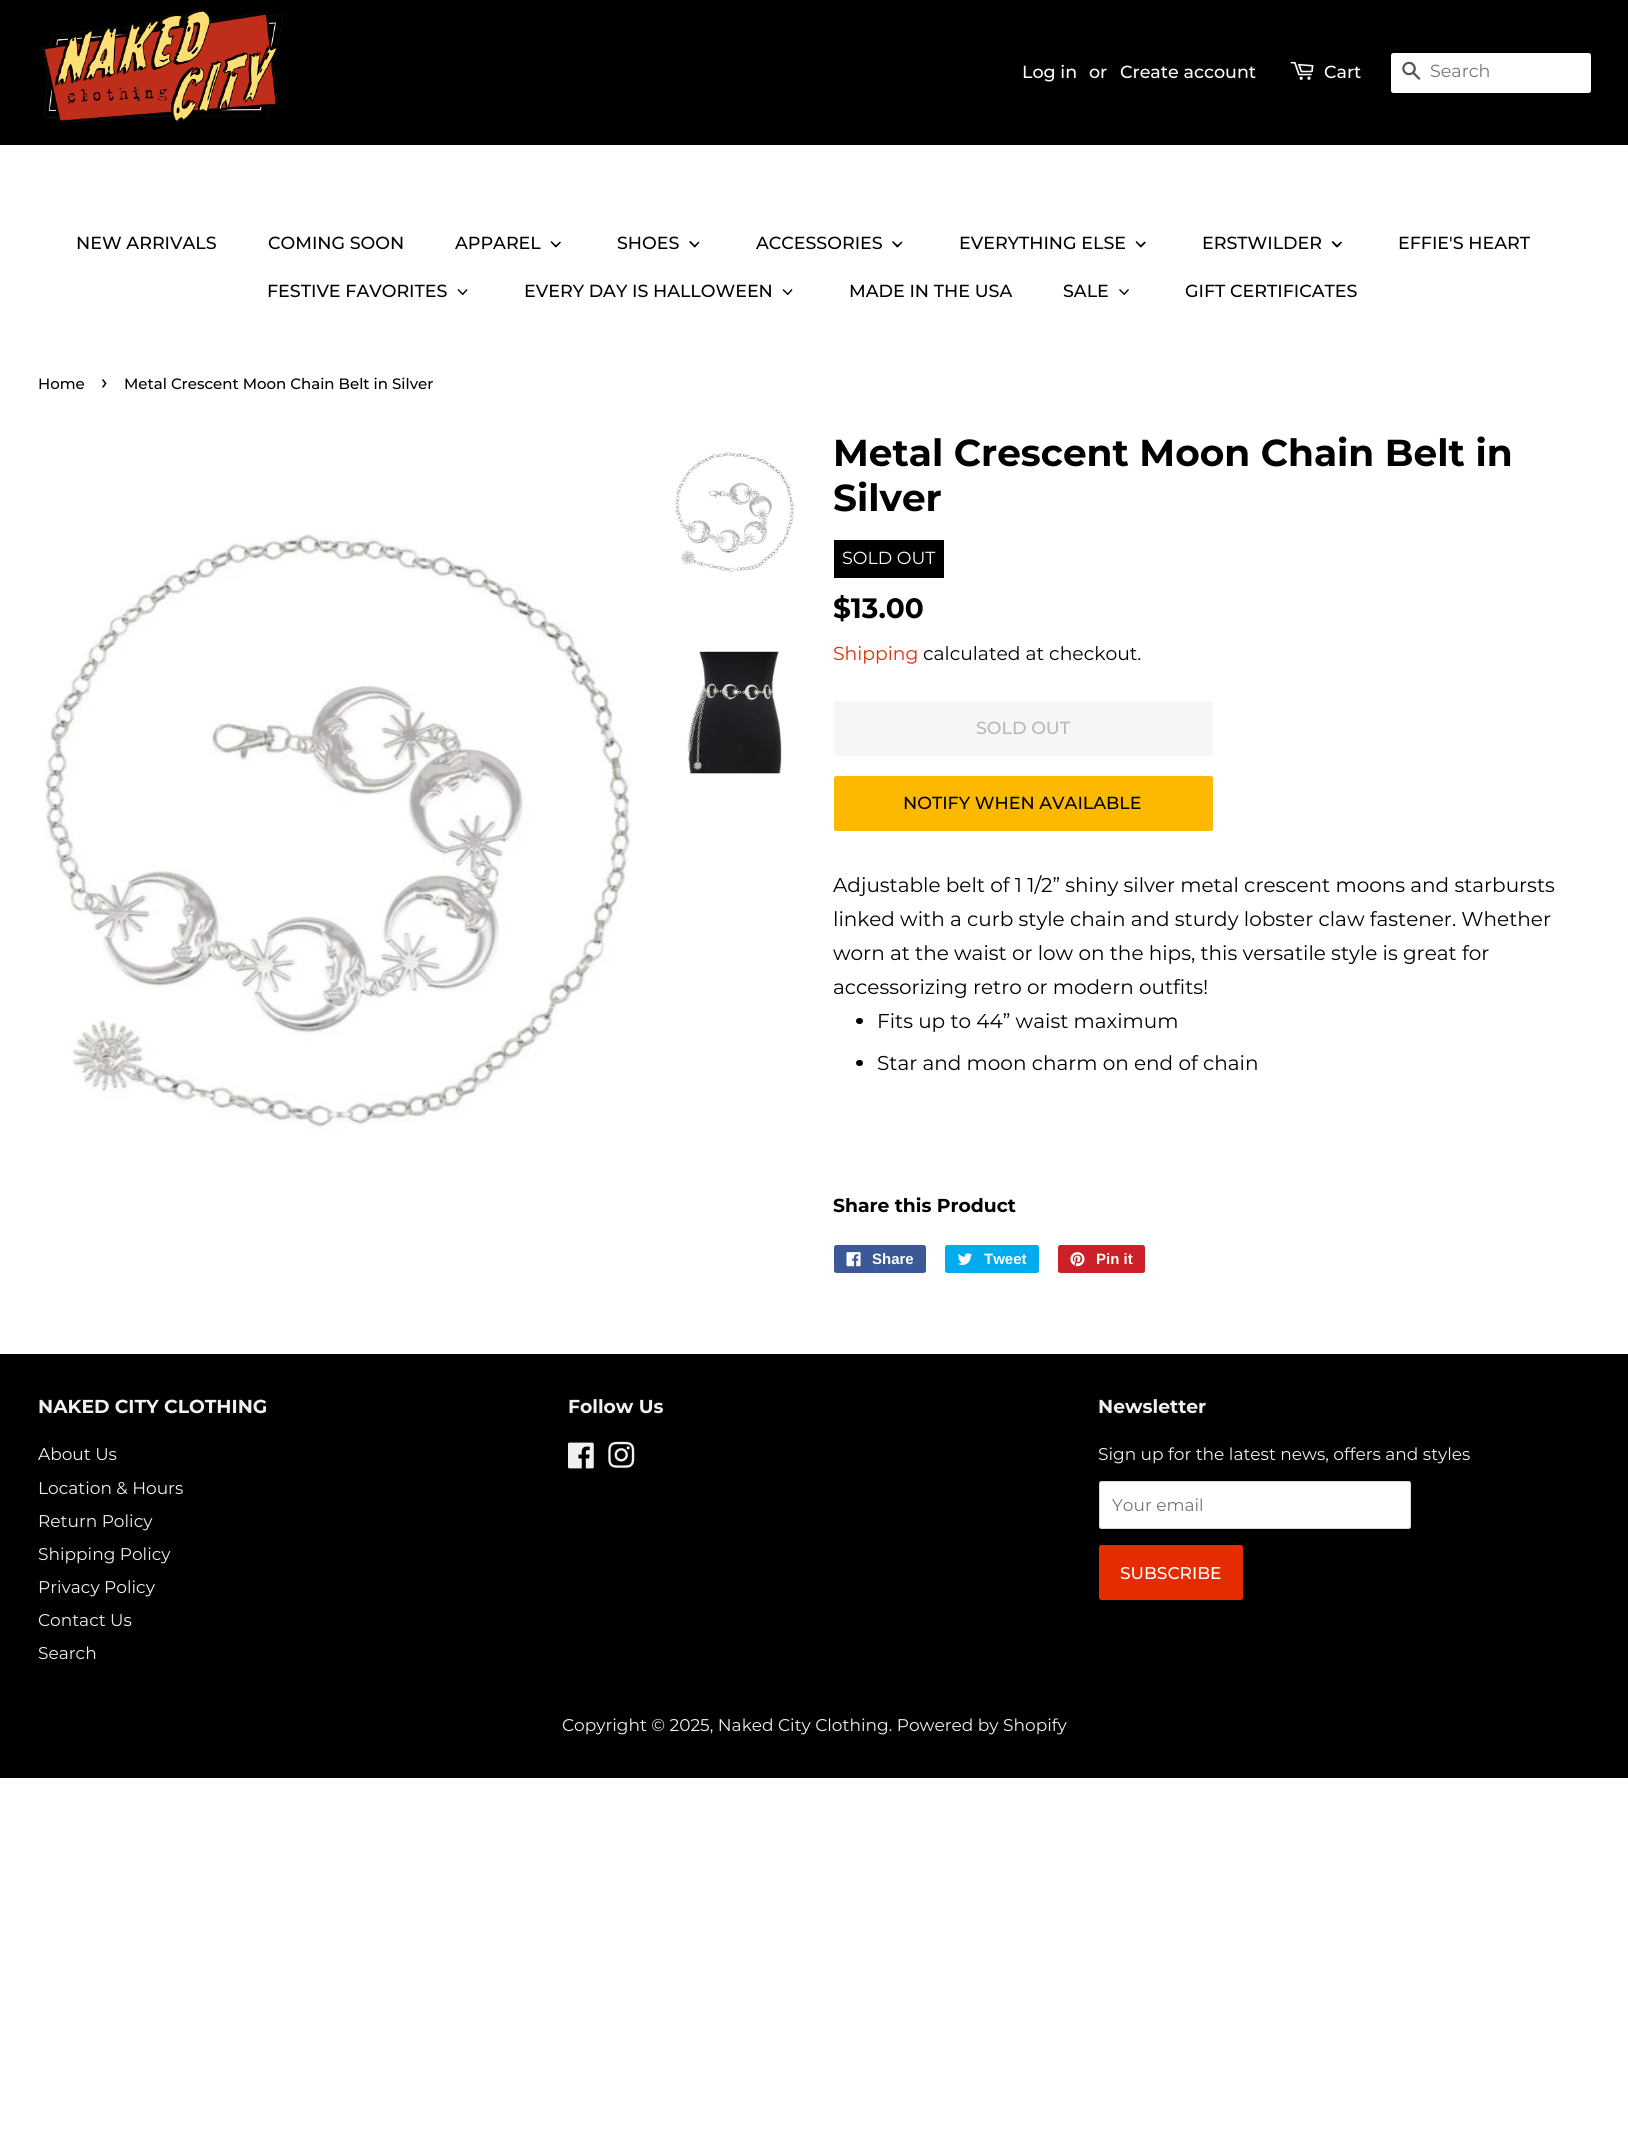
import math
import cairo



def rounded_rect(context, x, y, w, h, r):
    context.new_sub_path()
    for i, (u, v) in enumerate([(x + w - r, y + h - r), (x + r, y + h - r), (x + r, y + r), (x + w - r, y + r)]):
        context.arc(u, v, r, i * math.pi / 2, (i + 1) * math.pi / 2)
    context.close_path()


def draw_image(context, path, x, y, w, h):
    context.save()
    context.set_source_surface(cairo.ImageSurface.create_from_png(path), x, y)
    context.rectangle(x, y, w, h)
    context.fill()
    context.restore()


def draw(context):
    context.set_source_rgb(1, 1, 1)
    context.paint()
    context.set_source_rgb(0, 0, 0)
    context.rectangle(0, 0, 1628, 145)
    context.fill()
    draw_image(context, "images/1.png", 42, 10, 242, 113)
    draw_image(context, "images/2.png", 1290, 61, 24, 19)
    context.set_source_rgb(1, 1, 1)
    rounded_rect(context, 1391, 53, 200, 40, 2.5)
    context.fill()
    draw_image(context, "images/3.png", 1402, 61, 19, 19)
    context.set_source_rgb(0, 0, 0)
    context.new_path()
    context.move_to(560, 241.5)
    context.line_to(561, 242.5)
    context.line_to(556, 247.5)
    context.line_to(555, 246)
    context.close_path()
    context.fill()
    context.new_path()
    context.move_to(551.5, 241)
    context.line_to(556.5, 246)
    context.line_to(555.5, 247.5)
    context.line_to(550.5, 242)
    context.close_path()
    context.fill()
    context.new_path()
    context.move_to(698.5, 241.5)
    context.line_to(699.5, 242.5)
    context.line_to(695, 247.5)
    context.line_to(694, 246)
    context.close_path()
    context.fill()
    context.new_path()
    context.move_to(690.5, 241)
    context.line_to(695.5, 246)
    context.line_to(694.5, 247.5)
    context.line_to(689, 242)
    context.close_path()
    context.fill()
    context.new_path()
    context.move_to(901.5, 241.5)
    context.line_to(902.5, 242.5)
    context.line_to(897.5, 247.5)
    context.line_to(896.5, 246)
    context.close_path()
    context.fill()
    context.new_path()
    context.move_to(893, 241)
    context.line_to(898.5, 246)
    context.line_to(897, 247.5)
    context.line_to(892, 242)
    context.close_path()
    context.fill()
    context.new_path()
    context.move_to(1144.5, 241.5)
    context.line_to(1146, 242.5)
    context.line_to(1141, 247.5)
    context.line_to(1140, 246)
    context.close_path()
    context.fill()
    context.new_path()
    context.move_to(1136.5, 241)
    context.line_to(1141.5, 246)
    context.line_to(1140.5, 247.5)
    context.line_to(1135.5, 242)
    context.close_path()
    context.fill()
    context.new_path()
    context.move_to(1341, 241.5)
    context.line_to(1342, 242.5)
    context.line_to(1337.5, 247.5)
    context.line_to(1336, 246)
    context.close_path()
    context.fill()
    context.new_path()
    context.move_to(1333, 241)
    context.line_to(1338, 246)
    context.line_to(1336.5, 247.5)
    context.line_to(1331.5, 242)
    context.close_path()
    context.fill()
    context.new_path()
    context.move_to(466.5, 289)
    context.line_to(467.5, 290)
    context.line_to(463, 295)
    context.line_to(462, 294)
    context.close_path()
    context.fill()
    context.new_path()
    context.move_to(458.5, 289)
    context.line_to(463.5, 294)
    context.line_to(462.5, 295)
    context.line_to(457.5, 290)
    context.close_path()
    context.fill()
    context.new_path()
    context.move_to(791.5, 289)
    context.line_to(792.5, 290)
    context.line_to(788, 295)
    context.line_to(787, 294)
    context.close_path()
    context.fill()
    context.new_path()
    context.move_to(783.5, 289)
    context.line_to(788.5, 294)
    context.line_to(787.5, 295)
    context.line_to(782.5, 290)
    context.close_path()
    context.fill()
    context.new_path()
    context.move_to(1128, 289)
    context.line_to(1129, 290)
    context.line_to(1124.5, 295)
    context.line_to(1123.5, 294)
    context.close_path()
    context.fill()
    context.new_path()
    context.move_to(1120, 289)
    context.line_to(1125, 294)
    context.line_to(1124, 295)
    context.line_to(1119, 290)
    context.close_path()
    context.fill()
    draw_image(context, "images/4.png", 44, 534, 589, 597)
    draw_image(context, "images/5.png", 675, 452, 119, 121)
    draw_image(context, "images/6.png", 687, 651, 108, 123)
    context.rectangle(834, 540, 110, 38)
    context.fill()
    context.set_source_rgb(246 / 255, 246 / 255, 246 / 255)
    rounded_rect(context, 834, 701, 379, 55, 2.5)
    context.fill()
    context.set_source_rgb(252 / 255, 185 / 255, 0)
    rounded_rect(context, 834, 776, 379, 55, 2.5)
    context.fill()
    context.set_source_rgb(0, 0, 0)
    rounded_rect(context, 856, 1018, 7, 6, 3)
    context.fill()
    rounded_rect(context, 856, 1060, 7, 6, 3)
    context.fill()
    context.set_source_rgb(59 / 255, 89 / 255, 152 / 255)
    rounded_rect(context, 834, 1245, 92, 28, 2.5)
    context.fill()
    draw_image(context, "images/7.png", 846, 1252, 15, 15)
    context.set_source_rgb(0, 172 / 255, 237 / 255)
    rounded_rect(context, 945, 1245, 94, 28, 2.5)
    context.fill()
    draw_image(context, "images/8.png", 957, 1253, 15, 12)
    context.set_source_rgb(203 / 255, 32 / 255, 39 / 255)
    rounded_rect(context, 1058, 1245, 87, 28, 2.5)
    context.fill()
    draw_image(context, "images/9.png", 1070, 1252, 15, 15)
    context.set_source_rgb(0, 0, 0)
    context.rectangle(0, 1354, 1628, 424)
    context.fill()
    draw_image(context, "images/10.png", 568, 1442, 26, 27)
    draw_image(context, "images/11.png", 608, 1441, 27, 27)
    context.set_source_rgb(1, 1, 1)
    rounded_rect(context, 1099, 1481, 312, 48, 2.5)
    context.fill()
    rounded_rect(context, 1099.5, 1481.5, 311, 47, 2)
    context.set_source_rgba(0, 0, 0, 0.15)
    context.set_line_width(1)
    context.stroke()
    context.set_source_rgb(228 / 255, 44 / 255, 0)
    rounded_rect(context, 1099, 1545, 144, 55, 2.5)
    context.fill()
    context.select_font_face("Montserrat Medium")
    context.set_font_size(17.5)
    context.set_source_rgb(1, 1, 1)
    context.move_to(1022, 78)
    context.show_text("Log in")
    context.move_to(1089, 78)
    context.show_text("or")
    context.move_to(1120, 78)
    context.show_text("Create account")
    context.move_to(1324, 78)
    context.show_text("Cart")
    context.select_font_face("Montserrat Thin")
    context.set_source_rgb(117 / 255, 117 / 255, 117 / 255)
    context.move_to(1430, 77)
    context.show_text("Search")
    context.select_font_face("Montserrat Medium")
    context.set_source_rgb(0, 0, 0)
    context.move_to(76, 249)
    context.show_text("NEW ARRIVALS")
    context.move_to(268, 249)
    context.show_text("COMING SOON")
    context.move_to(455, 249)
    context.show_text("APPAREL")
    context.move_to(617, 249)
    context.show_text("SHOES")
    context.move_to(756, 249)
    context.show_text("ACCESSORIES")
    context.move_to(959, 249)
    context.show_text("EVERYTHING ELSE")
    context.move_to(1202, 249)
    context.show_text("ERSTWILDER")
    context.move_to(1398, 249)
    context.show_text("EFFIE'S HEART")
    context.move_to(267, 297)
    context.show_text("FESTIVE FAVORITES")
    context.move_to(524, 297)
    context.show_text("EVERY DAY IS HALLOWEEN")
    context.move_to(849, 297)
    context.show_text("MADE IN THE USA")
    context.move_to(1063, 297)
    context.show_text("SALE")
    context.move_to(1185, 297)
    context.show_text("GIFT CERTIFICATES")
    context.set_font_size(15)
    context.move_to(38, 389)
    context.show_text("Home")
    context.set_font_size(21)
    context.move_to(101, 389)
    context.show_text("›")
    context.set_font_size(15)
    context.move_to(124, 389)
    context.show_text("Metal Crescent Moon Chain Belt in Silver")
    context.select_font_face("Montserrat", cairo.FontSlant.NORMAL, cairo.FontWeight.BOLD)
    context.set_font_size(37.5)
    context.move_to(833, 466)
    context.show_text("Metal Crescent Moon Chain Belt in")
    context.move_to(833, 511)
    context.show_text("Silver")
    context.select_font_face("Montserrat Thin")
    context.set_font_size(17.5)
    context.set_source_rgb(1, 1, 1)
    context.move_to(842, 564)
    context.show_text("SOLD OUT")
    context.select_font_face("Montserrat", cairo.FontSlant.NORMAL, cairo.FontWeight.BOLD)
    context.set_font_size(28)
    context.set_source_rgb(0, 0, 0)
    context.move_to(833, 618)
    context.show_text("$13.00")
    context.select_font_face("Montserrat Thin")
    context.set_font_size(18.75)
    context.set_source_rgb(228 / 255, 44 / 255, 0)
    context.move_to(833, 660)
    context.show_text("Shipping")
    context.set_source_rgb(0, 0, 0)
    context.move_to(923, 660)
    context.show_text("calculated at checkout.")
    context.select_font_face("Montserrat Medium")
    context.set_font_size(17.5)
    context.set_source_rgb(182 / 255, 182 / 255, 182 / 255)
    context.move_to(976, 734)
    context.show_text("SOLD OUT")
    context.set_source_rgb(0, 0, 0)
    context.move_to(903, 809)
    context.show_text("NOTIFY WHEN AVAILABLE")
    context.select_font_face("Montserrat Thin")
    context.set_font_size(20)
    context.move_to(833, 892)
    context.show_text("Adjustable belt of 1 1/2” shiny silver metal crescent moons and starbursts")
    context.move_to(833, 926)
    context.show_text("linked with a curb style chain and sturdy lobster claw fastener. Whether")
    context.move_to(833, 960)
    context.show_text("worn at the waist or low on the hips, this versatile style is great for")
    context.move_to(833, 994)
    context.show_text("accessorizing retro or modern outfits!")
    context.move_to(877, 1028)
    context.show_text("Fits up to 44” waist maximum")
    context.move_to(877, 1070)
    context.show_text("Star and moon charm on end of chain")
    context.select_font_face("Montserrat", cairo.FontSlant.NORMAL, cairo.FontWeight.BOLD)
    context.set_font_size(18.75)
    context.move_to(833, 1212)
    context.show_text("Share this Product")
    context.select_font_face("Liberation Sans", cairo.FontSlant.NORMAL, cairo.FontWeight.BOLD)
    context.set_font_size(15)
    context.set_source_rgb(1, 1, 1)
    context.move_to(872, 1264)
    context.show_text("Share")
    context.move_to(984, 1264)
    context.show_text("Tweet")
    context.move_to(1096, 1264)
    context.show_text("Pin it")
    context.select_font_face("Montserrat", cairo.FontSlant.NORMAL, cairo.FontWeight.BOLD)
    context.set_font_size(18.75)
    context.set_source_rgb(242 / 255, 240 / 255, 238 / 255)
    context.move_to(38, 1413)
    context.show_text("NAKED CITY CLOTHING")
    context.select_font_face("Montserrat Thin")
    context.set_font_size(17)
    context.move_to(38, 1460)
    context.show_text("About Us")
    context.move_to(38, 1494)
    context.show_text("Location & Hours")
    context.move_to(38, 1527)
    context.show_text("Return Policy")
    context.move_to(38, 1560)
    context.show_text("Shipping Policy")
    context.move_to(38, 1593)
    context.show_text("Privacy Policy")
    context.move_to(38, 1626)
    context.show_text("Contact Us")
    context.move_to(38, 1659)
    context.show_text("Search")
    context.select_font_face("Montserrat", cairo.FontSlant.NORMAL, cairo.FontWeight.BOLD)
    context.set_font_size(18.75)
    context.move_to(568, 1413)
    context.show_text("Follow Us")
    context.move_to(1098, 1413)
    context.show_text("Newsletter")
    context.select_font_face("Montserrat Thin")
    context.set_font_size(17)
    context.move_to(1098, 1460)
    context.show_text("Sign up for the latest news, offers and styles")
    context.set_source_rgb(117 / 255, 117 / 255, 117 / 255)
    context.move_to(1112, 1511)
    context.show_text("Your email")
    context.select_font_face("Montserrat Medium")
    context.set_source_rgb(1, 1, 1)
    context.move_to(1120, 1579)
    context.show_text("SUBSCRIBE")
    context.select_font_face("Montserrat Thin")
    context.set_source_rgb(242 / 255, 240 / 255, 238 / 255)
    context.move_to(562, 1731)
    context.show_text("Copyright © 2025, Naked City Clothing. Powered by Shopify")


surface = cairo.ImageSurface(cairo.Format.RGB24, 1628, 2151)
context = cairo.Context(surface)
options = cairo.FontOptions()
options.set_hint_metrics(cairo.HintMetrics.OFF)
options.set_hint_style(cairo.HintStyle.NONE)
context.set_font_options(options)
context.set_miter_limit(4)
draw(context)
surface.write_to_png("out.png")
